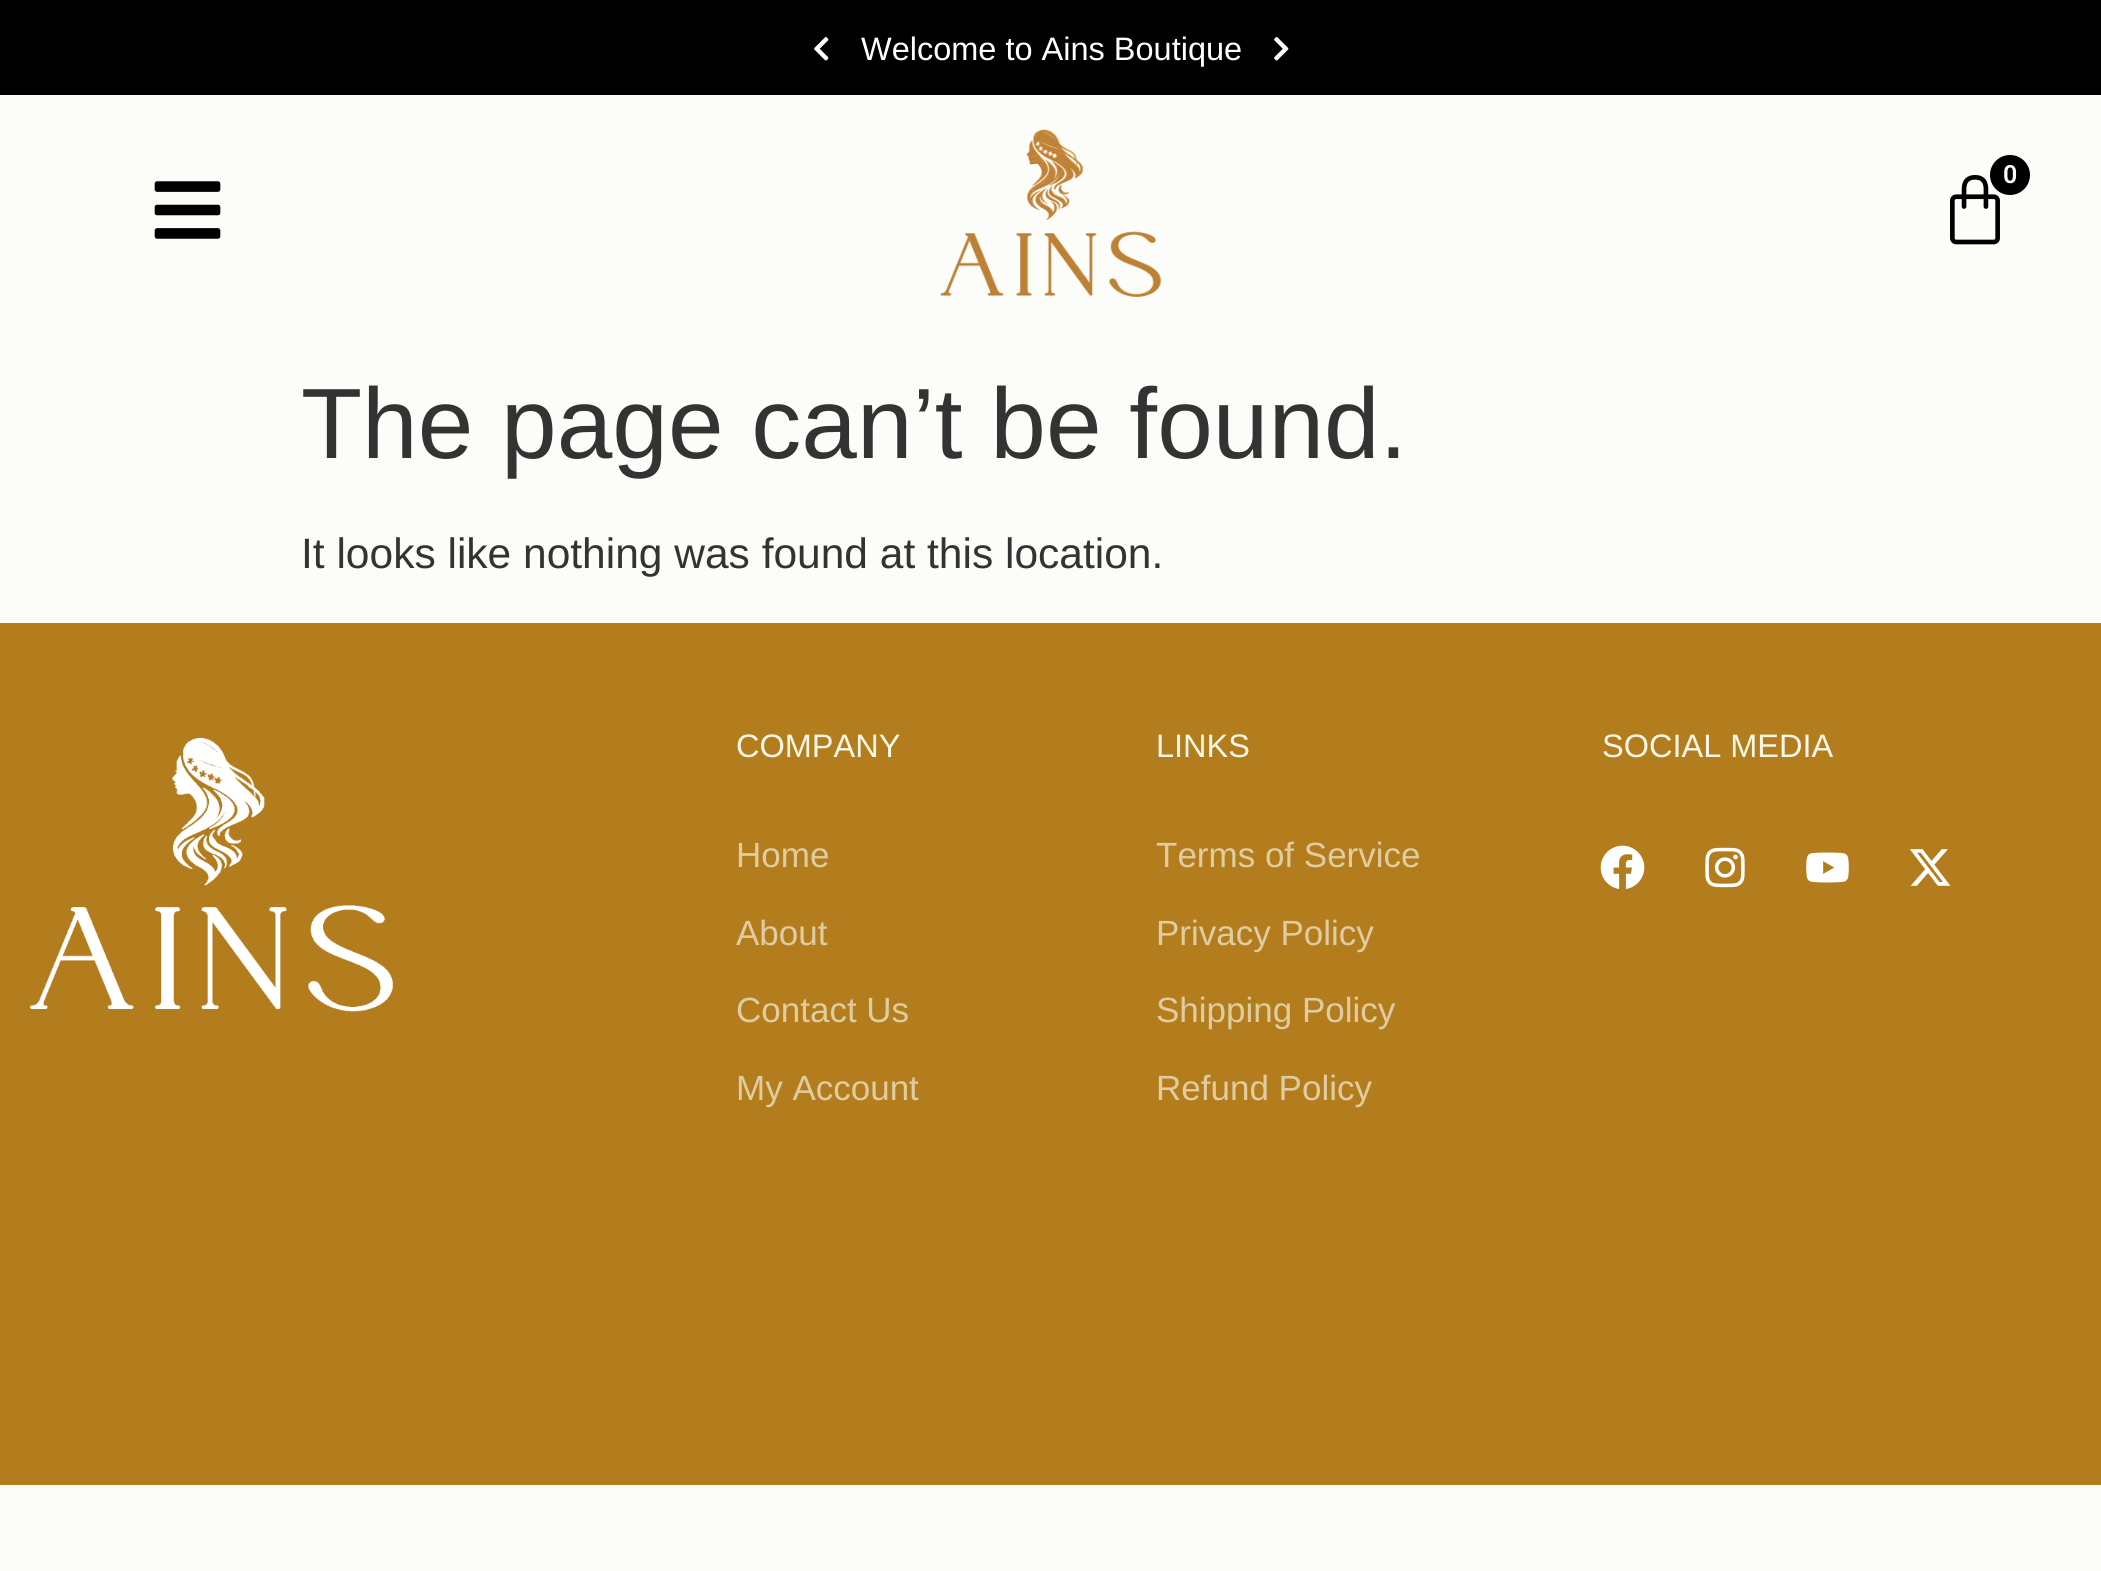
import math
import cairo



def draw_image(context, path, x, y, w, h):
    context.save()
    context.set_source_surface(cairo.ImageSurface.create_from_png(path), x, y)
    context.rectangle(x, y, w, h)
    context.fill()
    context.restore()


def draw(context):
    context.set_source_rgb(252 / 255, 253 / 255, 248 / 255)
    context.paint()
    context.set_source_rgb(0, 0, 0)
    context.rectangle(0, 0, 2101, 95)
    context.fill()
    draw_image(context, "images/1.png", 814, 37, 15, 24)
    draw_image(context, "images/2.png", 1274, 37, 15, 24)
    draw_image(context, "images/3.png", 940, 129, 222, 168)
    draw_image(context, "images/4.png", 1950, 175, 50, 70)
    context.arc(2010, 175, 20, 0, 2 * math.pi)
    context.fill()
    draw_image(context, "images/5.png", 154, 181, 67, 58)
    context.set_source_rgb(179 / 255, 125 / 255, 29 / 255)
    context.rectangle(0, 623, 2101, 862)
    context.fill()
    draw_image(context, "images/6.png", 30, 738, 363, 274)
    draw_image(context, "images/7.png", 1600, 845, 45, 44)
    draw_image(context, "images/8.png", 1705, 847, 40, 41)
    draw_image(context, "images/9.png", 1806, 852, 43, 31)
    draw_image(context, "images/10.png", 1910, 849, 41, 37)
    context.select_font_face("Liberation Sans")
    context.set_font_size(32.5)
    context.set_source_rgb(1, 1, 1)
    context.move_to(861, 60)
    context.show_text("Welcome to Ains Boutique")
    context.select_font_face("Roboto SemiBold")
    context.set_font_size(25)
    context.move_to(2003, 183)
    context.show_text("0")
    context.select_font_face("Liberation Sans")
    context.set_font_size(100)
    context.set_source_rgb(51 / 255, 51 / 255, 51 / 255)
    context.move_to(301, 458)
    context.show_text("The page can’t be found.")
    context.set_font_size(42.5)
    context.move_to(301, 568)
    context.show_text("It looks like nothing was found at this location.")
    context.set_font_size(32.5)
    context.set_source_rgb(247 / 255, 247 / 255, 232 / 255)
    context.move_to(736, 757)
    context.show_text("COMPANY")
    context.set_font_size(35)
    context.set_source_rgb(223 / 255, 204 / 255, 161 / 255)
    context.move_to(736, 867)
    context.show_text("Home")
    context.move_to(736, 945)
    context.show_text("About")
    context.move_to(736, 1022)
    context.show_text("Contact Us")
    context.move_to(736, 1100)
    context.show_text("My Account")
    context.set_font_size(32.5)
    context.set_source_rgb(247 / 255, 247 / 255, 232 / 255)
    context.move_to(1156, 757)
    context.show_text("LINKS")
    context.set_font_size(35)
    context.set_source_rgb(223 / 255, 204 / 255, 161 / 255)
    context.move_to(1156, 867)
    context.show_text("Terms of Service")
    context.move_to(1156, 945)
    context.show_text("Privacy Policy")
    context.move_to(1156, 1022)
    context.show_text("Shipping Policy")
    context.move_to(1156, 1100)
    context.show_text("Refund Policy")
    context.set_font_size(32.5)
    context.set_source_rgb(247 / 255, 247 / 255, 232 / 255)
    context.move_to(1602, 757)
    context.show_text("SOCIAL MEDIA")


surface = cairo.ImageSurface(cairo.Format.RGB24, 2101, 1571)
context = cairo.Context(surface)
options = cairo.FontOptions()
options.set_hint_metrics(cairo.HintMetrics.OFF)
options.set_hint_style(cairo.HintStyle.NONE)
context.set_font_options(options)
context.set_miter_limit(4)
draw(context)
surface.write_to_png("out.png")
